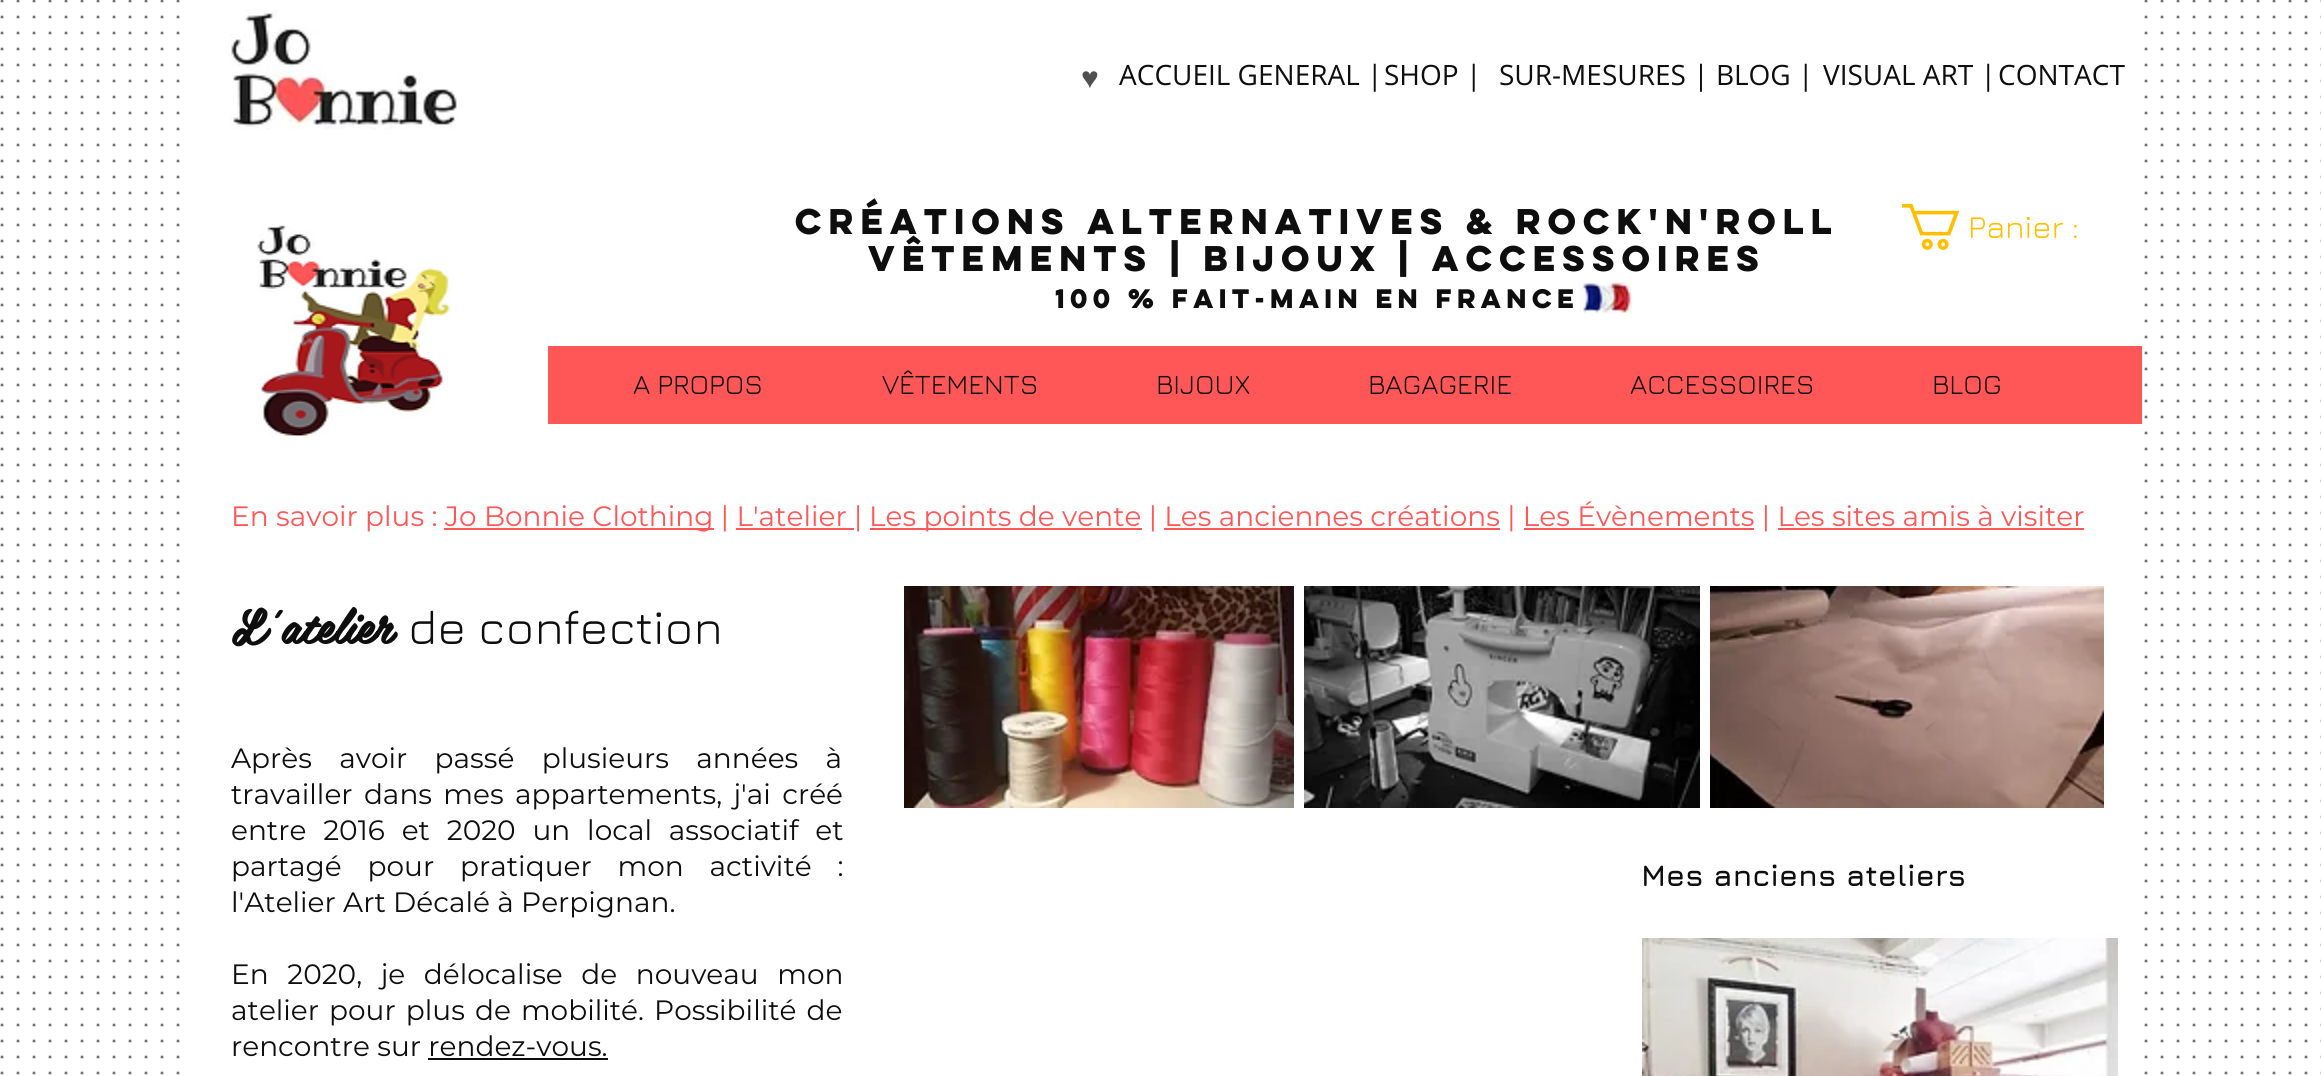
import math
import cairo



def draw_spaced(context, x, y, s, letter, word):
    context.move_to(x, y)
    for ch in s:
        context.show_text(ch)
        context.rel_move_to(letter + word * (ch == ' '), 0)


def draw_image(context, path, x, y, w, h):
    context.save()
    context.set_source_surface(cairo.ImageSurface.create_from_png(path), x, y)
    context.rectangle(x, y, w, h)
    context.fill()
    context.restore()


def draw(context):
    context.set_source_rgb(1, 1, 1)
    context.paint()
    draw_image(context, "images/1.png", 0, 0, 2321, 1075)
    context.set_source_rgb(1, 1, 1)
    context.rectangle(192, 0, 1940, 1075)
    context.fill()
    draw_image(context, "images/2.png", 230, 10, 227, 120)
    draw_image(context, "images/3.png", 257, 225, 194, 212)
    draw_image(context, "images/4.png", 1578, 282, 54, 32)
    draw_image(context, "images/5.png", 1902, 204, 58, 46)
    context.set_source_rgb(1, 87 / 255, 87 / 255)
    context.rectangle(548, 346, 1594, 78)
    context.fill()
    context.rectangle(444, 528, 270, 2)
    context.fill()
    context.rectangle(736, 528, 118, 2)
    context.fill()
    context.rectangle(870, 528, 272, 2)
    context.fill()
    context.rectangle(1164, 528, 336, 2)
    context.fill()
    context.rectangle(1524, 528, 230, 2)
    context.fill()
    context.rectangle(1778, 528, 306, 2)
    context.fill()
    draw_image(context, "images/6.png", 904, 586, 390, 222)
    draw_image(context, "images/7.png", 1304, 586, 396, 222)
    draw_image(context, "images/8.png", 1710, 586, 394, 222)
    context.set_source_rgb(14 / 255, 14 / 255, 14 / 255)
    context.rectangle(428, 1058, 180, 2)
    context.fill()
    draw_image(context, "images/9.png", 1642, 938, 476, 138)
    context.select_font_face("Liberation Sans", cairo.FontSlant.ITALIC)
    context.set_font_size(30)
    context.set_source_rgb(81 / 255, 80 / 255, 80 / 255)
    context.move_to(1081, 88)
    context.show_text("♥")
    context.select_font_face("Open Sans")
    context.set_font_size(28)
    context.set_source_rgb(14 / 255, 14 / 255, 14 / 255)
    context.move_to(1119, 85)
    context.show_text("ACCUEIL GENERAL |")
    context.move_to(1384, 85)
    context.show_text("SHOP |")
    context.move_to(1499, 85)
    context.show_text("SUR-MESURES | BLOG |")
    context.move_to(1823, 85)
    context.show_text("VISUAL ART |")
    context.move_to(1998, 85)
    context.show_text("CONTACT")
    context.select_font_face("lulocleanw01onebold", cairo.FontSlant.NORMAL, cairo.FontWeight.BOLD)
    context.set_font_size(32)
    context.move_to(795, 234)
    context.show_text("Créations alternatives & Rock'n'Roll")
    context.move_to(868, 271)
    context.show_text("Vêtements | Bijoux | Accessoires")
    context.set_font_size(24)
    context.move_to(1055, 308)
    context.show_text("100 % Fait-main en France")
    context.select_font_face("Jura")
    context.set_font_size(32)
    context.set_source_rgb(1, 191 / 255, 0)
    context.move_to(1968, 238)
    context.show_text("Panier :")
    context.set_font_size(28)
    context.set_source_rgb(14 / 255, 14 / 255, 14 / 255)
    context.move_to(633, 394)
    context.show_text("A PROPOS")
    context.move_to(882, 394)
    context.show_text("VÊTEMENTS")
    context.move_to(1156, 394)
    context.show_text("BIJOUX")
    context.move_to(1368, 394)
    context.show_text("BAGAGERIE")
    context.move_to(1630, 394)
    context.show_text("ACCESSOIRES")
    context.move_to(1932, 394)
    context.show_text("BLOG")
    context.select_font_face("Montserrat")
    context.set_source_rgb(1, 87 / 255, 87 / 255)
    context.move_to(231, 526)
    context.show_text("En savoir plus :")
    context.move_to(445, 526)
    context.show_text("Jo Bonnie Clothing | L'atelier |")
    context.move_to(869, 526)
    context.show_text("Les points de vente | Les anciennes créations | Les Évènements | Les sites amis à visiter")
    context.select_font_face("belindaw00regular", cairo.FontSlant.NORMAL, cairo.FontWeight.BOLD)
    context.set_font_size(48)
    context.set_source_rgb(14 / 255, 14 / 255, 14 / 255)
    context.move_to(231, 644)
    context.show_text("L'atelier")
    context.select_font_face("Jura")
    context.move_to(408, 644)
    context.show_text("de confection")
    context.select_font_face("Montserrat")
    context.set_font_size(28)
    draw_spaced(context, 231, 768, "Après avoir passé plusieurs années à", 0, 20)
    draw_spaced(context, 231, 804, "travailler dans mes appartements, j'ai créé", 0, 4)
    draw_spaced(context, 231, 840, "entre 2016 et 2020 un local associatif et", 0, 9.5)
    draw_spaced(context, 231, 876, "partagé pour pratiquer mon activité :", 0, 18.5)
    context.move_to(231, 912)
    context.show_text("l'Atelier Art Décalé à Perpignan.")
    draw_spaced(context, 231, 984, "En 2020, je délocalise de nouveau mon", 0, 11.25)
    draw_spaced(context, 231, 1020, "atelier pour plus de mobilité. Possibilité de", 0, 2.75)
    context.move_to(231, 1056)
    context.show_text("rencontre sur rendez-vous.")
    context.select_font_face("Jura", cairo.FontSlant.NORMAL, cairo.FontWeight.BOLD)
    context.set_font_size(30)
    context.move_to(1641, 886)
    context.show_text("Mes anciens ateliers")


surface = cairo.ImageSurface(cairo.Format.RGB24, 2321, 1076)
context = cairo.Context(surface)
options = cairo.FontOptions()
options.set_hint_metrics(cairo.HintMetrics.OFF)
options.set_hint_style(cairo.HintStyle.NONE)
context.set_font_options(options)
context.set_miter_limit(4)
draw(context)
surface.write_to_png("out.png")
